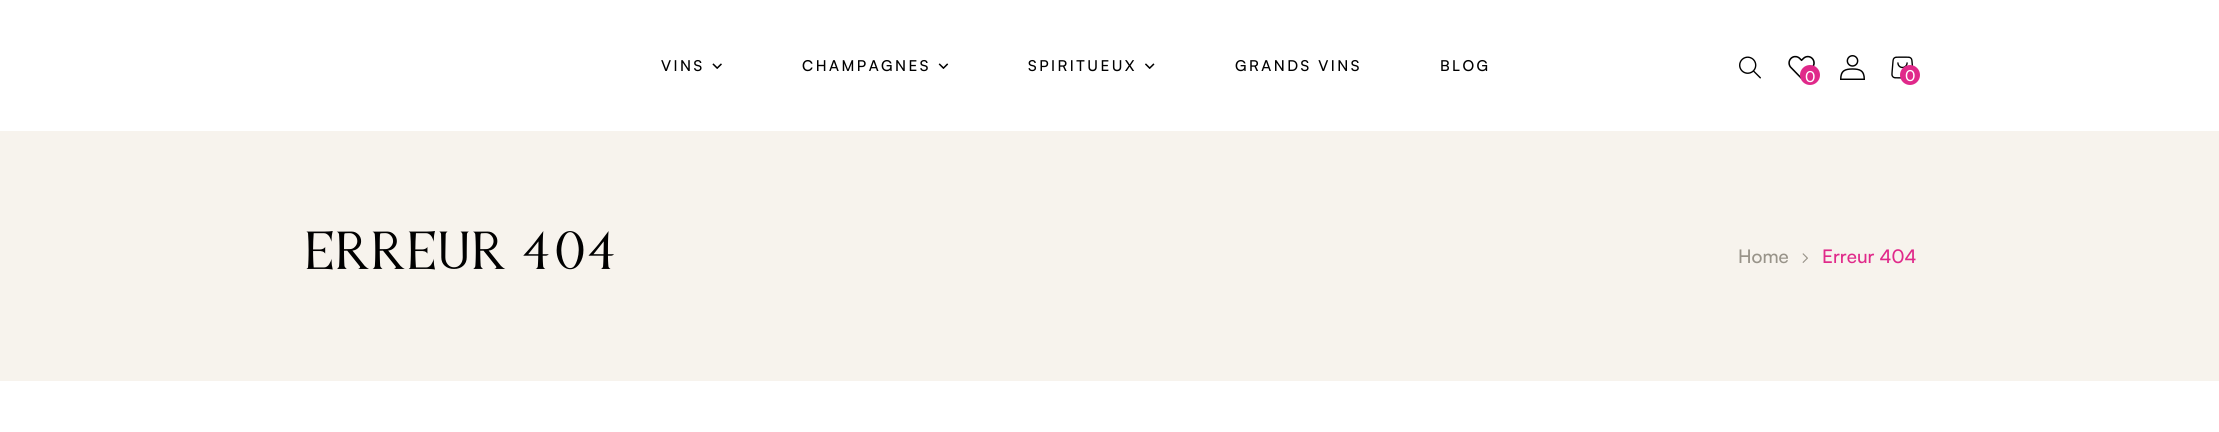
import math
import cairo



def draw_spaced(context, x, y, s, letter, word):
    context.move_to(x, y)
    for ch in s:
        context.show_text(ch)
        context.rel_move_to(letter + word * (ch == ' '), 0)


def draw_image(context, path, x, y, w, h):
    context.save()
    context.set_source_surface(cairo.ImageSurface.create_from_png(path), x, y)
    context.rectangle(x, y, w, h)
    context.fill()
    context.restore()


def draw(context):
    context.set_source_rgb(1, 1, 1)
    context.paint()
    draw_image(context, "images/1.png", 712, 63, 10, 6)
    draw_image(context, "images/2.png", 938, 63, 11, 6)
    draw_image(context, "images/3.png", 1145, 63, 10, 6)
    draw_image(context, "images/4.png", 1739, 56, 22, 23)
    draw_image(context, "images/5.png", 1788, 55, 27, 25)
    context.set_source_rgb(224 / 255, 41 / 255, 138 / 255)
    context.arc(1810, 75, 10, 0, 2 * math.pi)
    context.fill()
    draw_image(context, "images/6.png", 1840, 55, 25, 25)
    draw_image(context, "images/7.png", 1891, 56, 23, 23)
    context.arc(1910, 75, 10, 0, 2 * math.pi)
    context.fill()
    context.set_source_rgb(247 / 255, 243 / 255, 237 / 255)
    context.rectangle(0, 131, 2219, 250)
    context.fill()
    draw_image(context, "images/8.png", 1802, 253, 6, 10)
    context.select_font_face("Satoshi Medium")
    context.set_font_size(15)
    context.set_source_rgb(0, 0, 0)
    draw_spaced(context, 661, 71, "VINS", 2.5, 0)
    draw_spaced(context, 802, 71, "CHAMPAGNES", 2.5, 0)
    draw_spaced(context, 1028, 71, "SPIRITUEUX", 2.5, 0)
    draw_spaced(context, 1235, 71, "GRANDS VINS", 2.5, 0)
    draw_spaced(context, 1440, 71, "BLOG", 2.5, 0)
    context.set_source_rgb(1, 1, 1)
    context.move_to(1805, 82)
    context.show_text("0")
    context.move_to(1905, 81)
    context.show_text("0")
    context.select_font_face("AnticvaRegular")
    context.set_font_size(47.5)
    context.set_source_rgb(0, 0, 0)
    context.move_to(304, 269)
    context.show_text("Erreur 404")
    context.select_font_face("Satoshi Medium")
    context.set_font_size(18.75)
    context.set_source_rgb(152 / 255, 147 / 255, 137 / 255)
    context.move_to(1738, 263)
    context.show_text("Home")
    context.set_source_rgb(224 / 255, 41 / 255, 138 / 255)
    context.move_to(1822, 263)
    context.show_text("Erreur 404")


surface = cairo.ImageSurface(cairo.Format.RGB24, 2219, 432)
context = cairo.Context(surface)
options = cairo.FontOptions()
options.set_hint_metrics(cairo.HintMetrics.OFF)
options.set_hint_style(cairo.HintStyle.NONE)
context.set_font_options(options)
context.set_miter_limit(4)
draw(context)
surface.write_to_png("out.png")
